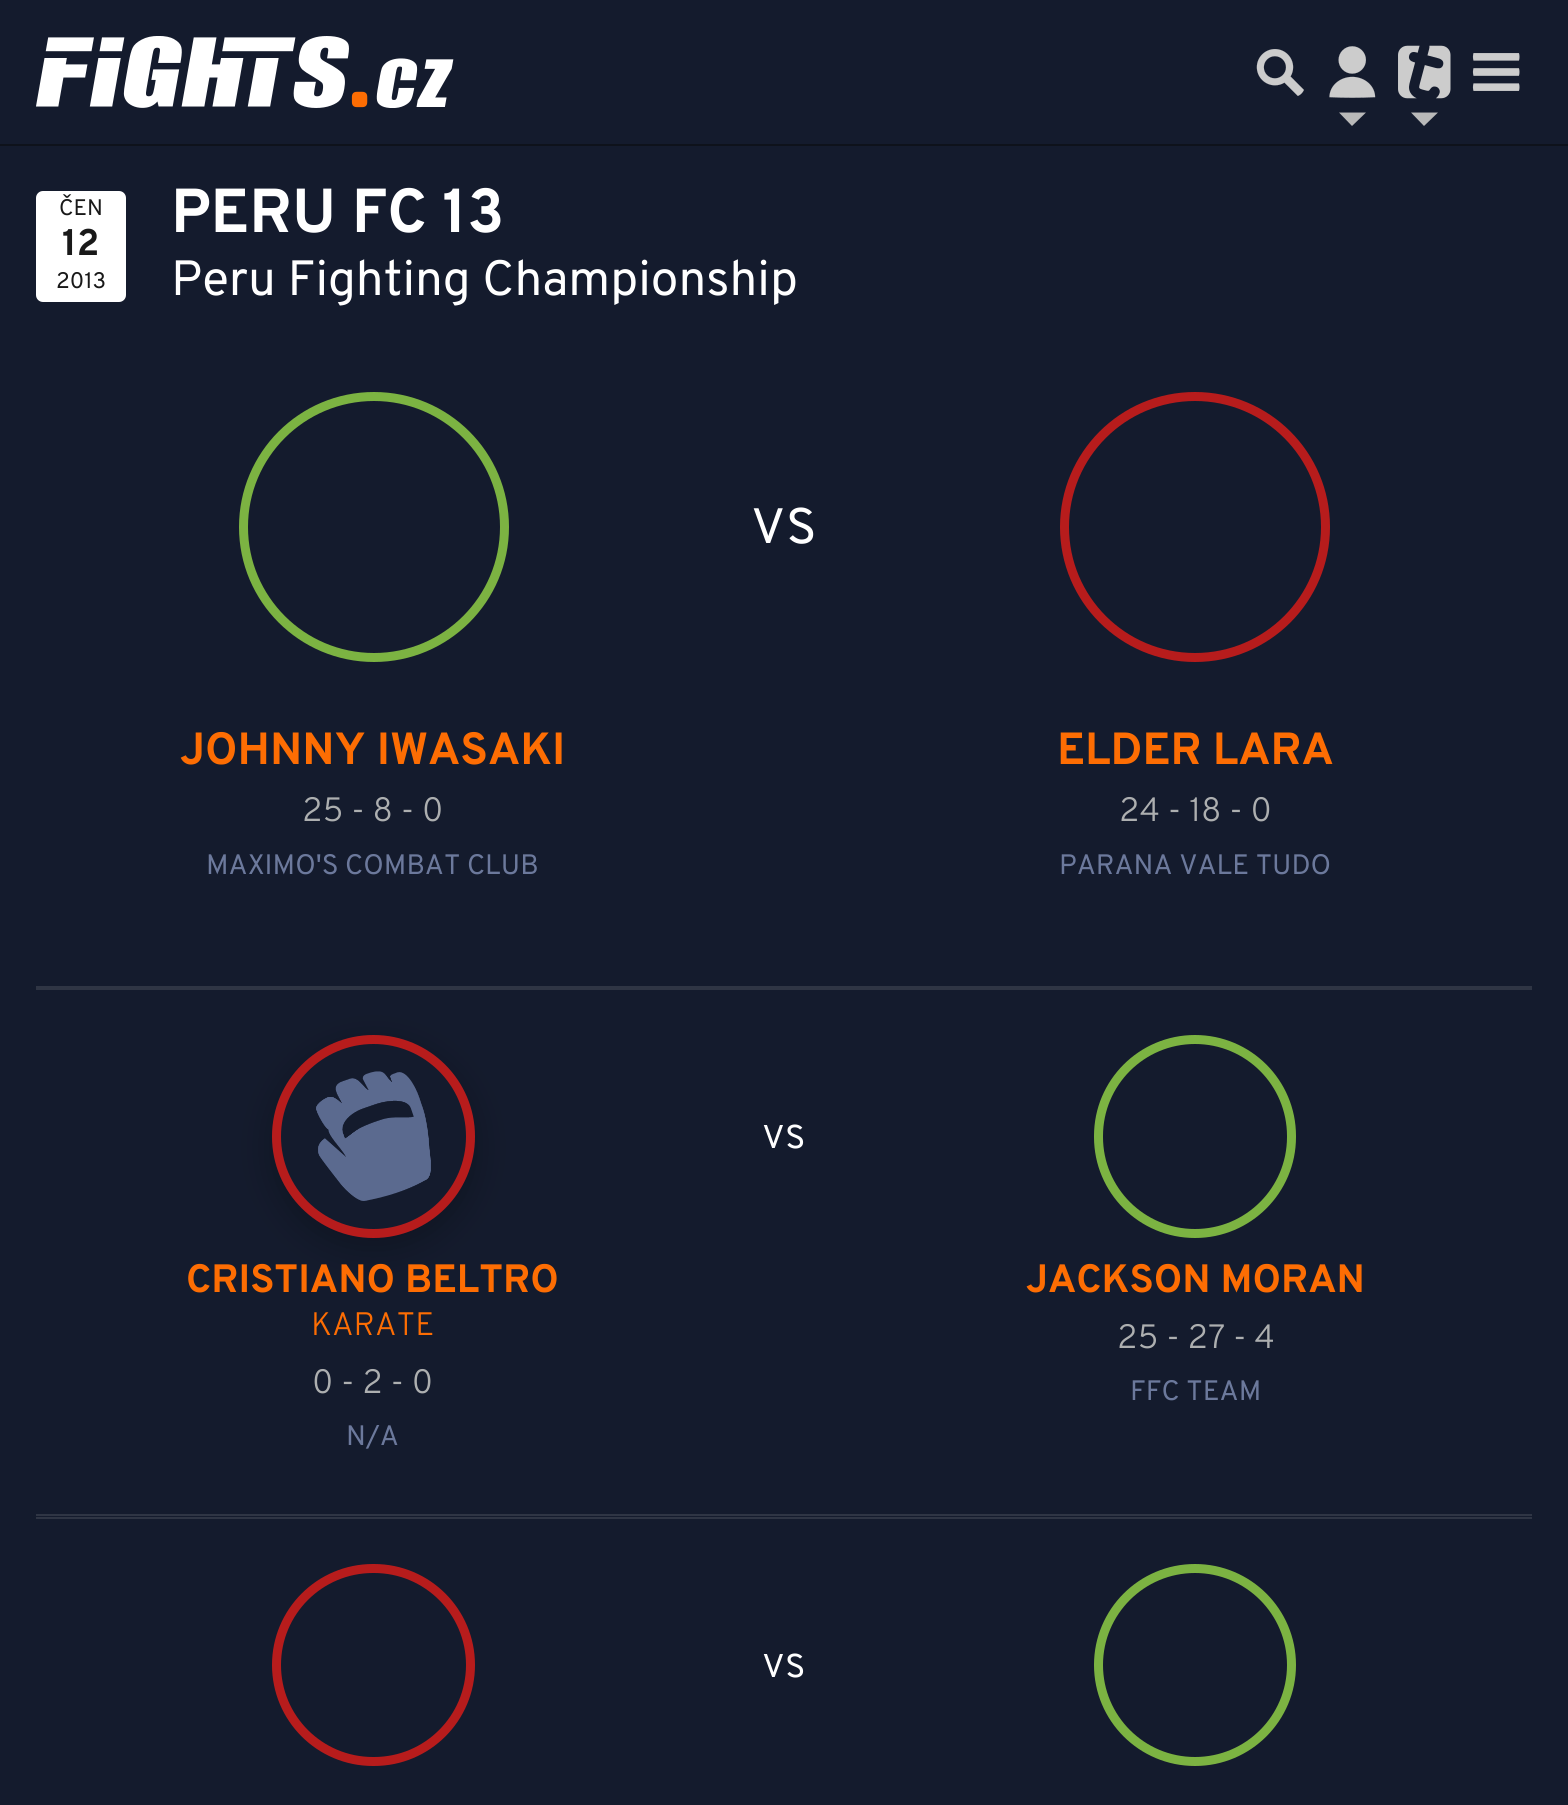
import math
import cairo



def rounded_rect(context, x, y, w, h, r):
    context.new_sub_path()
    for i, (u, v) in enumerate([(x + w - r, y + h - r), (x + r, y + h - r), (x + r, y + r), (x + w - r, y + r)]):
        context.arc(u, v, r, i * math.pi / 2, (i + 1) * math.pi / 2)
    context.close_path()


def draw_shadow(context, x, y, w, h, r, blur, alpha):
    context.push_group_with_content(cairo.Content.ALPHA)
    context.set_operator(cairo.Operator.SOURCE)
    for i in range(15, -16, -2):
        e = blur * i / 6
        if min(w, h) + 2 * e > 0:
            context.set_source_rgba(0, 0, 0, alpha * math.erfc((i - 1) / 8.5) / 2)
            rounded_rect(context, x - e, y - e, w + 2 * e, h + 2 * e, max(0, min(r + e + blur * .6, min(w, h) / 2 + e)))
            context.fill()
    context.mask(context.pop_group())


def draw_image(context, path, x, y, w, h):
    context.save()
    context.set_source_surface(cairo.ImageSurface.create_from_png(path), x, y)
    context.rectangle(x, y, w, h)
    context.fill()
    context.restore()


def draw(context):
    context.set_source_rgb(14 / 255, 18 / 255, 27 / 255)
    context.paint()
    context.set_source_rgb(20 / 255, 27 / 255, 45 / 255)
    context.rectangle(0, 0, 1568, 144)
    context.fill()
    draw_image(context, "images/1.png", 36, 36, 418, 72)
    draw_image(context, "images/2.png", 1256, 49, 48, 47)
    draw_image(context, "images/3.png", 1329, 46, 47, 52)
    context.set_source_rgb(185 / 255, 185 / 255, 185 / 255)
    context.new_path()
    context.move_to(1339, 112.5)
    context.line_to(1366, 112.5)
    context.line_to(1352, 126)
    context.close_path()
    context.fill()
    draw_image(context, "images/4.png", 1398, 45, 53, 54)
    context.new_path()
    context.move_to(1411, 112.5)
    context.line_to(1438, 112.5)
    context.line_to(1424, 126)
    context.close_path()
    context.fill()
    draw_image(context, "images/5.png", 1472, 53, 48, 38)
    context.set_source_rgb(20 / 255, 27 / 255, 45 / 255)
    context.rectangle(0, 146, 1568, 1659)
    context.fill()
    context.set_source_rgb(1, 1, 1)
    rounded_rect(context, 36, 191, 90, 111, 7)
    context.fill()
    context.set_source_rgb(47 / 255, 53 / 255, 68 / 255)
    context.rectangle(36, 986, 1496, 4)
    context.fill()
    context.arc(374, 527, 130.5, 0, 2 * math.pi)
    context.set_source_rgb(124 / 255, 179 / 255, 66 / 255)
    context.set_line_width(9)
    context.stroke()
    context.arc(1195, 527, 130.5, 0, 2 * math.pi)
    context.set_source_rgb(183 / 255, 28 / 255, 28 / 255)
    context.stroke()
    context.set_source_rgb(47 / 255, 53 / 255, 68 / 255)
    context.rectangle(36, 1514, 1496, 2)
    context.fill()
    context.save()
    context.set_fill_rule(cairo.FillRule.EVEN_ODD)
    context.new_path()
    context.move_to(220, 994)
    context.line_to(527, 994)
    context.line_to(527, 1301)
    context.line_to(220, 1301)
    context.close_path()
    context.move_to(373.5, 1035)
    context.curve_to(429.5, 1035, 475, 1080.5, 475, 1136.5)
    context.curve_to(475, 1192.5, 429.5, 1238, 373.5, 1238)
    context.curve_to(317.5, 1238, 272, 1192.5, 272, 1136.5)
    context.curve_to(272, 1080.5, 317.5, 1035, 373.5, 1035)
    context.close_path()
    context.clip()
    context.set_source_rgb(0, 0, 0)
    draw_shadow(context, 272, 1046, 203, 203, 101.5, 17, 0.25)
    context.restore()
    draw_image(context, "images/6.png", 316, 1071, 115, 130)
    context.arc(373.5, 1136.5, 97, 0, 2 * math.pi)
    context.set_source_rgb(183 / 255, 28 / 255, 28 / 255)
    context.stroke()
    rounded_rect(context, 1098.5, 1039.5, 193, 194, 96.5)
    context.set_source_rgb(124 / 255, 179 / 255, 66 / 255)
    context.stroke()
    context.set_source_rgb(47 / 255, 53 / 255, 68 / 255)
    context.rectangle(36, 1517, 1496, 2)
    context.fill()
    rounded_rect(context, 276.5, 1568.5, 194, 193, 96.5)
    context.set_source_rgb(183 / 255, 28 / 255, 28 / 255)
    context.stroke()
    context.arc(1195, 1665, 96.5, 0, 2 * math.pi)
    context.set_source_rgb(124 / 255, 179 / 255, 66 / 255)
    context.stroke()
    context.select_font_face("Overpass")
    context.set_font_size(22.5)
    context.set_source_rgb(25 / 255, 25 / 255, 25 / 255)
    context.move_to(59, 215)
    context.show_text("ČEN")
    context.select_font_face("Overpass", cairo.FontSlant.NORMAL, cairo.FontWeight.BOLD)
    context.set_font_size(37)
    context.move_to(62, 255)
    context.show_text("12")
    context.select_font_face("Overpass")
    context.set_font_size(22.5)
    context.move_to(56, 288)
    context.show_text("2013")
    context.select_font_face("Overpass", cairo.FontSlant.NORMAL, cairo.FontWeight.BOLD)
    context.set_font_size(62)
    context.set_source_rgb(1, 1, 1)
    context.move_to(171, 232)
    context.show_text("PERU FC 13")
    context.select_font_face("Overpass")
    context.set_font_size(49.5)
    context.move_to(171, 295)
    context.show_text("Peru Fighting Championship")
    context.select_font_face("Overpass Light")
    context.set_font_size(68)
    context.move_to(751, 543)
    context.show_text("vs")
    context.select_font_face("Overpass", cairo.FontSlant.NORMAL, cairo.FontWeight.BOLD)
    context.set_font_size(45)
    context.set_source_rgb(253 / 255, 109 / 255, 3 / 255)
    context.move_to(180, 764)
    context.show_text("JOHNNY IWASAKI")
    context.select_font_face("Overpass Light")
    context.set_font_size(33.75)
    context.set_source_rgb(173 / 255, 175 / 255, 176 / 255)
    context.move_to(302, 821)
    context.show_text("25 - 8 - 0")
    context.select_font_face("Overpass")
    context.set_font_size(28.1)
    context.set_source_rgb(108 / 255, 121 / 255, 156 / 255)
    context.move_to(206, 874)
    context.show_text("MAXIMO'S COMBAT CLUB")
    context.select_font_face("Overpass", cairo.FontSlant.NORMAL, cairo.FontWeight.BOLD)
    context.set_font_size(45)
    context.set_source_rgb(253 / 255, 109 / 255, 3 / 255)
    context.move_to(1057, 764)
    context.show_text("ELDER LARA")
    context.select_font_face("Overpass Light")
    context.set_font_size(33.75)
    context.set_source_rgb(173 / 255, 175 / 255, 176 / 255)
    context.move_to(1119, 821)
    context.show_text("24 - 18 - 0")
    context.select_font_face("Overpass")
    context.set_font_size(28.1)
    context.set_source_rgb(108 / 255, 121 / 255, 156 / 255)
    context.move_to(1059, 874)
    context.show_text("PARANA VALE TUDO")
    context.select_font_face("Overpass Light")
    context.set_font_size(45)
    context.set_source_rgb(1, 1, 1)
    context.move_to(762, 1148)
    context.show_text("vs")
    context.select_font_face("Overpass", cairo.FontSlant.NORMAL, cairo.FontWeight.BOLD)
    context.set_font_size(39.5)
    context.set_source_rgb(253 / 255, 109 / 255, 3 / 255)
    context.move_to(186, 1292)
    context.show_text("CRISTIANO BELTRO")
    context.select_font_face("Overpass Light")
    context.set_font_size(32.5)
    context.move_to(311, 1335)
    context.show_text("KARATE")
    context.set_font_size(33.75)
    context.set_source_rgb(173 / 255, 175 / 255, 176 / 255)
    context.move_to(312, 1393)
    context.show_text("0 - 2 - 0")
    context.select_font_face("Overpass")
    context.set_font_size(28.1)
    context.set_source_rgb(108 / 255, 121 / 255, 156 / 255)
    context.move_to(346, 1445)
    context.show_text("N/A")
    context.select_font_face("Overpass", cairo.FontSlant.NORMAL, cairo.FontWeight.BOLD)
    context.set_font_size(39.5)
    context.set_source_rgb(253 / 255, 109 / 255, 3 / 255)
    context.move_to(1026, 1292)
    context.show_text("JACKSON MORAN")
    context.select_font_face("Overpass Light")
    context.set_font_size(33.75)
    context.set_source_rgb(173 / 255, 175 / 255, 176 / 255)
    context.move_to(1117, 1348)
    context.show_text("25 - 27 - 4")
    context.select_font_face("Overpass")
    context.set_font_size(28.1)
    context.set_source_rgb(108 / 255, 121 / 255, 156 / 255)
    context.move_to(1130, 1400)
    context.show_text("FFC TEAM")
    context.select_font_face("Overpass Light")
    context.set_font_size(45)
    context.set_source_rgb(1, 1, 1)
    context.move_to(762, 1677)
    context.show_text("vs")


surface = cairo.ImageSurface(cairo.Format.RGB24, 1568, 1805)
context = cairo.Context(surface)
options = cairo.FontOptions()
options.set_hint_metrics(cairo.HintMetrics.OFF)
options.set_hint_style(cairo.HintStyle.NONE)
context.set_font_options(options)
context.set_miter_limit(4)
draw(context)
surface.write_to_png("out.png")
